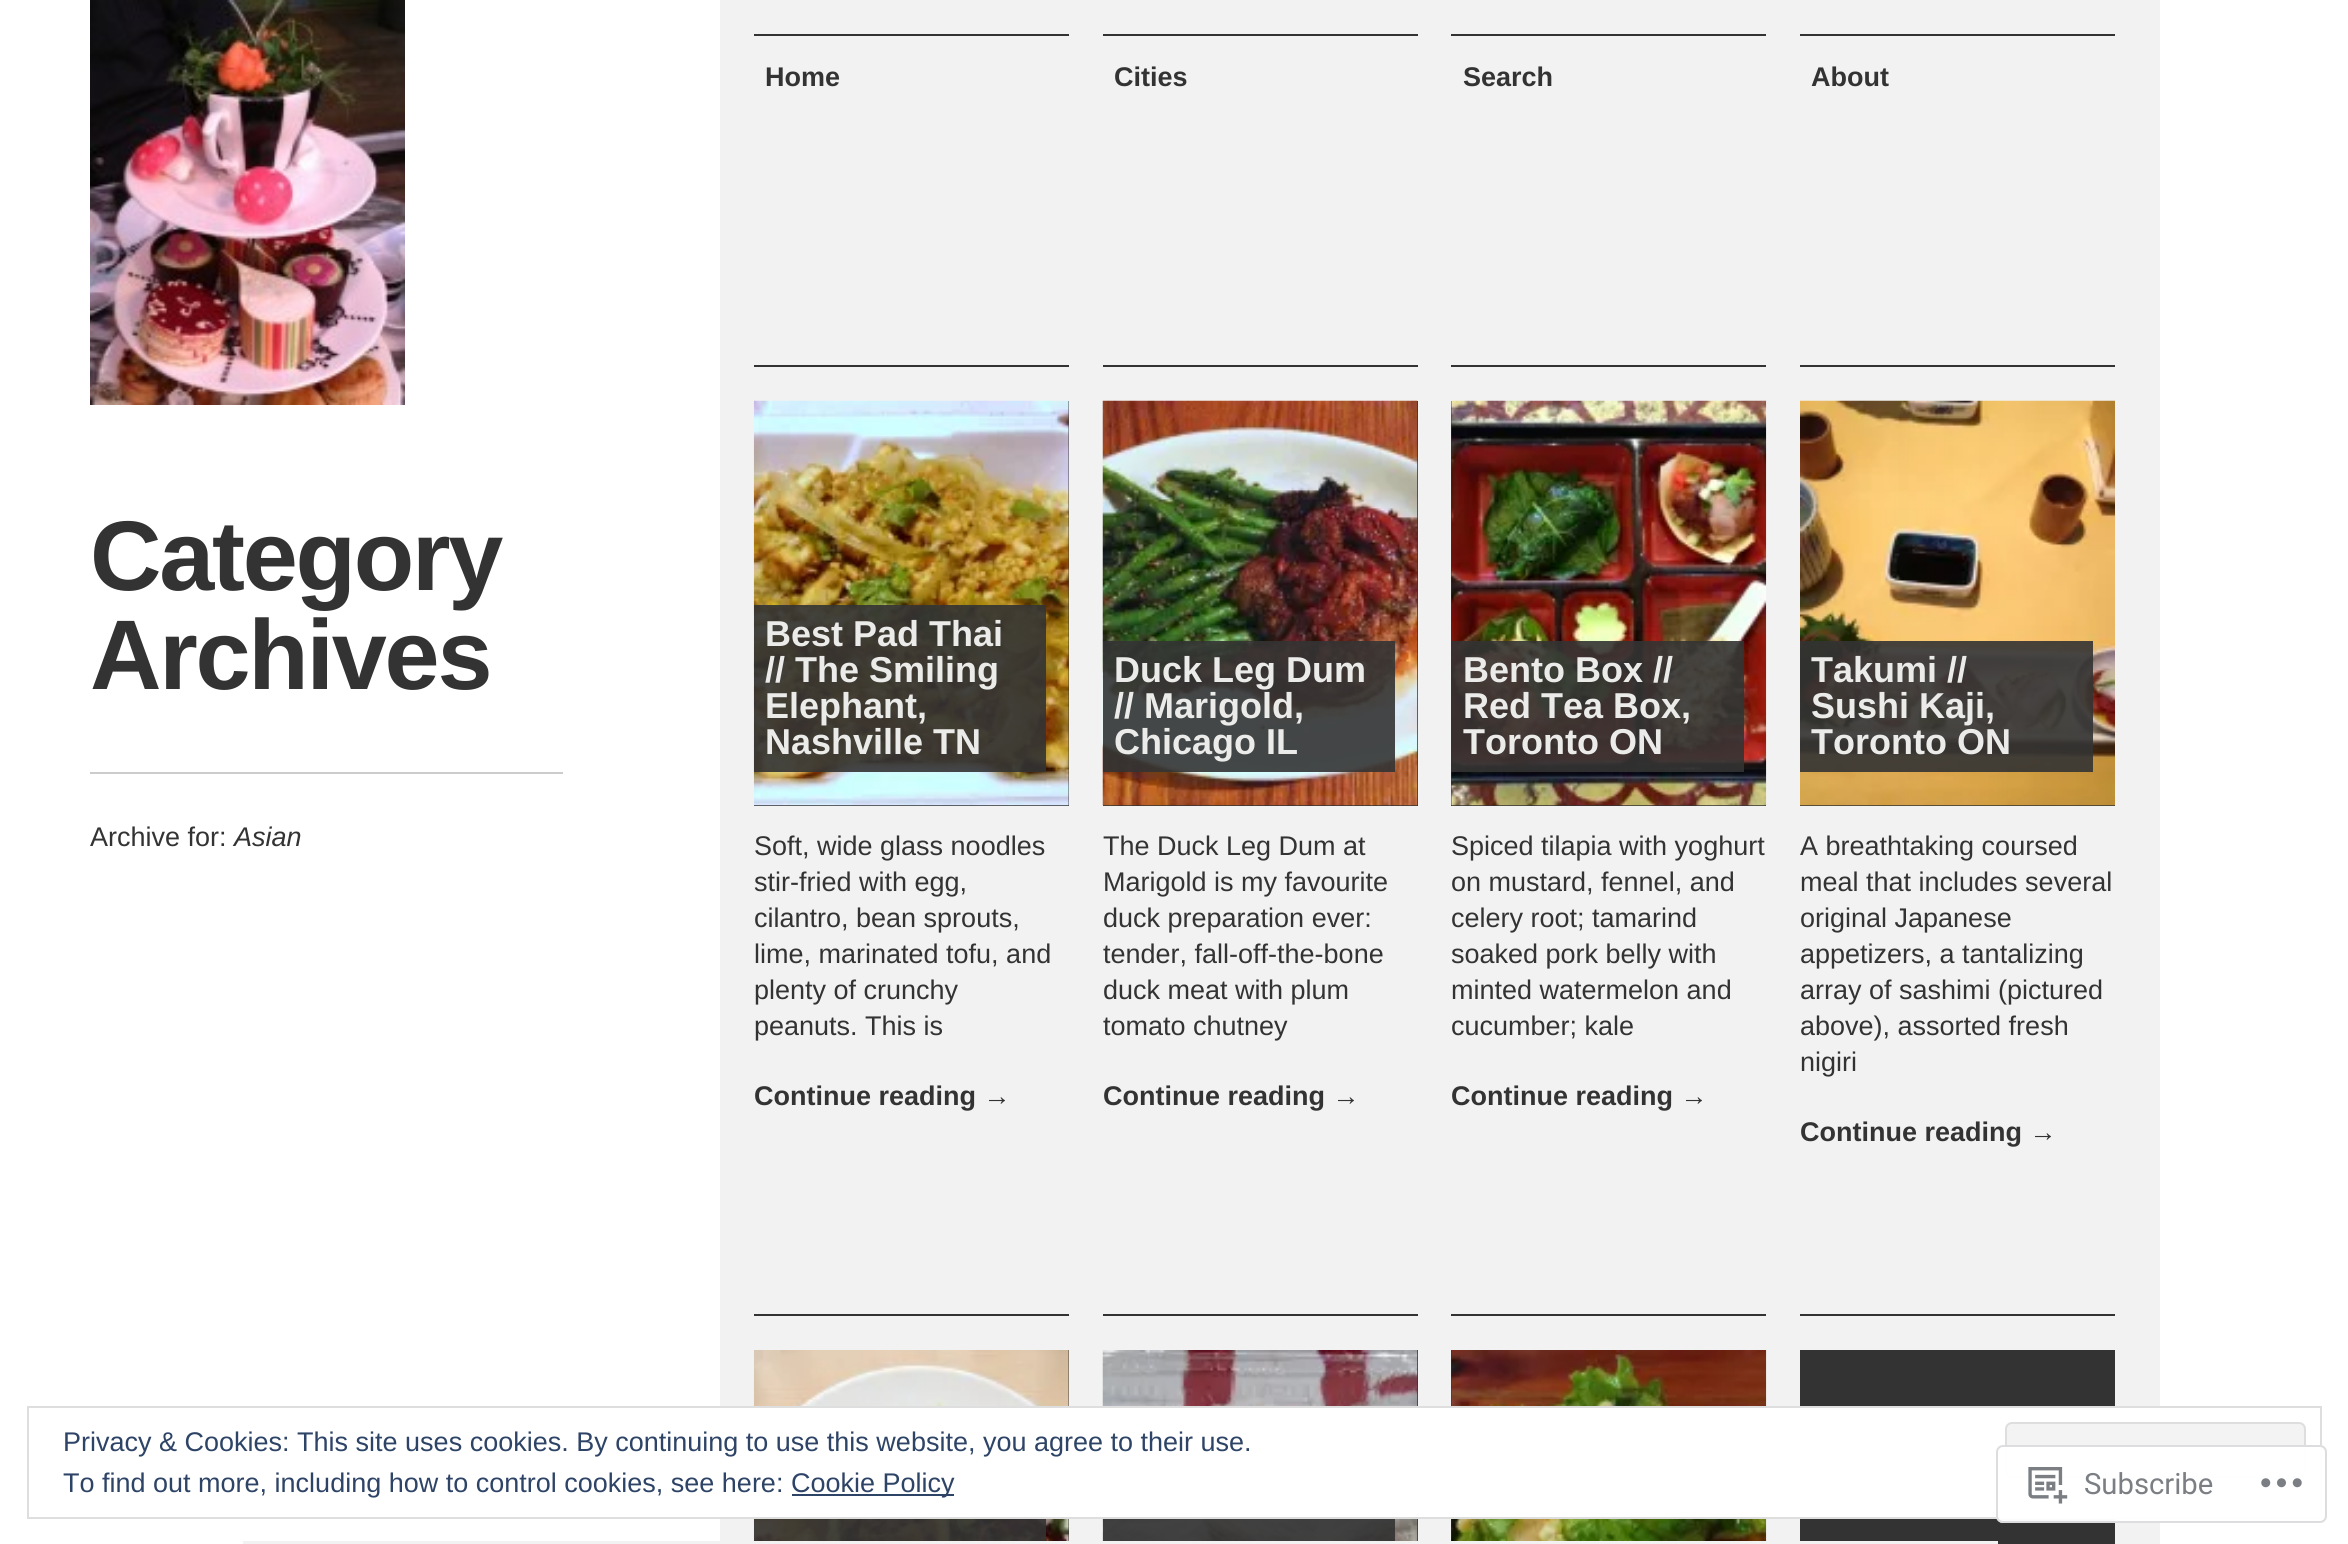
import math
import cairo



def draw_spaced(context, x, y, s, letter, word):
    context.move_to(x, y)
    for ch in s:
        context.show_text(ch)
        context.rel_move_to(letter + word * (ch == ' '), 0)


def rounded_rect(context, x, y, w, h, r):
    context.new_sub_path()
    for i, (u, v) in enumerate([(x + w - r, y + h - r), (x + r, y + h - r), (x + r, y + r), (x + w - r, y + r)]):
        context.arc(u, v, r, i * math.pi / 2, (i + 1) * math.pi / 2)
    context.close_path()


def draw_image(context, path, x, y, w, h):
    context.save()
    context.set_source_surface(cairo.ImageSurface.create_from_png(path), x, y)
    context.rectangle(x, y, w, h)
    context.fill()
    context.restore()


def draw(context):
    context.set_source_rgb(1, 1, 1)
    context.paint()
    context.set_source_rgb(242 / 255, 242 / 255, 242 / 255)
    context.rectangle(720, 0, 1440, 1544)
    context.fill()
    draw_image(context, "images/1.png", 90, 0, 315, 405)
    context.set_source_rgb(204 / 255, 204 / 255, 204 / 255)
    context.rectangle(90, 772, 473, 2)
    context.fill()
    context.set_source_rgb(51 / 255, 51 / 255, 51 / 255)
    context.rectangle(754, 34, 315, 2)
    context.fill()
    context.rectangle(1103, 34, 315, 2)
    context.fill()
    context.rectangle(1451, 34, 315, 2)
    context.fill()
    context.rectangle(1800, 34, 315, 2)
    context.fill()
    context.rectangle(754, 365, 315, 2)
    context.fill()
    context.rectangle(754, 401, 315, 405)
    context.fill()
    draw_image(context, "images/2.png", 753, 400, 316, 406)
    context.set_source_rgba(51 / 255, 51 / 255, 51 / 255, 0.9)
    context.rectangle(754, 605, 292, 167)
    context.fill()
    context.set_source_rgb(51 / 255, 51 / 255, 51 / 255)
    context.rectangle(1103, 365, 315, 2)
    context.fill()
    context.rectangle(1103, 401, 315, 405)
    context.fill()
    draw_image(context, "images/3.png", 1102, 400, 316, 406)
    context.set_source_rgba(51 / 255, 51 / 255, 51 / 255, 0.9)
    context.rectangle(1103, 641, 292, 131)
    context.fill()
    context.set_source_rgb(51 / 255, 51 / 255, 51 / 255)
    context.rectangle(1451, 365, 315, 2)
    context.fill()
    context.rectangle(1451, 401, 315, 405)
    context.fill()
    draw_image(context, "images/4.png", 1451, 400, 316, 406)
    context.set_source_rgba(51 / 255, 51 / 255, 51 / 255, 0.9)
    context.rectangle(1451, 641, 293, 131)
    context.fill()
    context.set_source_rgb(51 / 255, 51 / 255, 51 / 255)
    context.rectangle(1800, 365, 315, 2)
    context.fill()
    context.rectangle(1800, 805, 315, 1)
    context.fill()
    draw_image(context, "images/5.png", 1800, 400, 315, 406)
    context.set_source_rgba(51 / 255, 51 / 255, 51 / 255, 0.9)
    context.rectangle(1800, 641, 293, 131)
    context.fill()
    context.set_source_rgb(51 / 255, 51 / 255, 51 / 255)
    context.rectangle(754, 1314, 315, 2)
    context.fill()
    context.rectangle(1068, 1350, 1, 191)
    context.fill()
    draw_image(context, "images/6.png", 753, 1350, 316, 191)
    context.set_source_rgba(51 / 255, 51 / 255, 51 / 255, 0.9)
    context.rectangle(754, 1519, 292, 22)
    context.fill()
    context.set_source_rgb(51 / 255, 51 / 255, 51 / 255)
    context.rectangle(1103, 1314, 315, 2)
    context.fill()
    context.rectangle(1417, 1350, 1, 191)
    context.fill()
    draw_image(context, "images/7.png", 1102, 1350, 316, 191)
    context.set_source_rgba(51 / 255, 51 / 255, 51 / 255, 0.9)
    context.rectangle(1103, 1519, 292, 22)
    context.fill()
    context.set_source_rgb(51 / 255, 51 / 255, 51 / 255)
    context.rectangle(1451, 1314, 315, 2)
    context.fill()
    context.rectangle(1451, 1350, 1, 191)
    context.fill()
    draw_image(context, "images/8.png", 1451, 1350, 316, 191)
    context.rectangle(1800, 1314, 315, 2)
    context.fill()
    context.rectangle(1800, 1350, 315, 194)
    context.fill()
    context.set_source_rgb(1, 1, 1)
    context.rectangle(720, 1408, 1440, 109)
    context.fill()
    context.rectangle(28, 1407, 2293, 111)
    context.set_source_rgb(222 / 255, 222 / 255, 222 / 255)
    context.stroke()
    context.set_source_rgb(243 / 255, 243 / 255, 243 / 255)
    rounded_rect(context, 2006, 1423, 299, 54, 6)
    context.fill_preserve()
    context.set_source_rgb(222 / 255, 222 / 255, 222 / 255)
    context.stroke()
    context.set_source_rgb(46 / 255, 68 / 255, 103 / 255)
    context.rectangle(792, 1494, 162, 2)
    context.fill()
    context.set_source_rgba(1, 1, 1, 0.98)
    rounded_rect(context, 1996, 1445, 331, 78, 7)
    context.fill()
    rounded_rect(context, 1997, 1446, 329, 76, 6)
    context.set_source_rgba(220 / 255, 220 / 255, 222 / 255, 0.98)
    context.stroke()
    draw_image(context, "images/9.png", 2028, 1467, 40, 37)
    draw_image(context, "images/10.png", 2261, 1478, 41, 10)
    context.set_source_rgb(242 / 255, 242 / 255, 242 / 255)
    context.rectangle(243, 1541, 1755, 3)
    context.fill()
    context.select_font_face("Liberation Sans", cairo.FontSlant.NORMAL, cairo.FontWeight.BOLD)
    context.set_font_size(99)
    context.set_source_rgb(51 / 255, 51 / 255, 51 / 255)
    draw_spaced(context, 90, 590, "Category", -2.25, 0)
    draw_spaced(context, 90, 689, "Archives", -2.25, 0)
    context.select_font_face("Liberation Sans")
    context.set_font_size(27)
    context.move_to(90, 846)
    context.show_text("Archive for:")
    context.select_font_face("Liberation Sans", cairo.FontSlant.ITALIC)
    context.move_to(234, 846)
    context.show_text("Asian")
    context.select_font_face("Liberation Sans", cairo.FontSlant.NORMAL, cairo.FontWeight.BOLD)
    context.move_to(765, 86)
    context.show_text("Home")
    context.move_to(1114, 86)
    context.show_text("Cities")
    context.move_to(1463, 86)
    context.show_text("Search")
    context.move_to(1811, 86)
    context.show_text("About")
    context.set_font_size(36)
    context.set_source_rgb(235 / 255, 235 / 255, 234 / 255)
    context.move_to(765, 646)
    context.show_text("Best Pad Thai")
    context.move_to(765, 682)
    context.show_text("// The Smiling")
    context.move_to(765, 718)
    context.show_text("Elephant,")
    context.move_to(765, 754)
    context.show_text("Nashville TN")
    context.select_font_face("Liberation Sans")
    context.set_font_size(27)
    context.set_source_rgb(51 / 255, 51 / 255, 51 / 255)
    context.move_to(754, 855)
    context.show_text("Soft, wide glass noodles")
    context.move_to(754, 891)
    context.show_text("stir-fried with egg,")
    context.move_to(754, 927)
    context.show_text("cilantro, bean sprouts,")
    context.move_to(754, 963)
    context.show_text("lime, marinated tofu, and")
    context.move_to(754, 999)
    context.show_text("plenty of crunchy")
    context.move_to(754, 1035)
    context.show_text("peanuts. This is")
    context.select_font_face("Liberation Sans", cairo.FontSlant.NORMAL, cairo.FontWeight.BOLD)
    context.move_to(754, 1105)
    context.show_text("Continue reading →")
    context.set_font_size(36)
    context.set_source_rgb(235 / 255, 235 / 255, 234 / 255)
    context.move_to(1114, 682)
    context.show_text("Duck Leg Dum")
    context.move_to(1114, 718)
    context.show_text("// Marigold,")
    context.move_to(1114, 754)
    context.show_text("Chicago IL")
    context.select_font_face("Liberation Sans")
    context.set_font_size(27)
    context.set_source_rgb(51 / 255, 51 / 255, 51 / 255)
    context.move_to(1103, 855)
    context.show_text("The Duck Leg Dum at")
    context.move_to(1103, 891)
    context.show_text("Marigold is my favourite")
    context.move_to(1103, 927)
    context.show_text("duck preparation ever:")
    context.move_to(1103, 963)
    context.show_text("tender, fall-off-the-bone")
    context.move_to(1103, 999)
    context.show_text("duck meat with plum")
    context.move_to(1103, 1035)
    context.show_text("tomato chutney")
    context.select_font_face("Liberation Sans", cairo.FontSlant.NORMAL, cairo.FontWeight.BOLD)
    context.move_to(1103, 1105)
    context.show_text("Continue reading →")
    context.set_font_size(36)
    context.set_source_rgb(235 / 255, 235 / 255, 234 / 255)
    context.move_to(1463, 682)
    context.show_text("Bento Box //")
    context.move_to(1463, 718)
    context.show_text("Red Tea Box,")
    context.move_to(1463, 754)
    context.show_text("Toronto ON")
    context.select_font_face("Liberation Sans")
    context.set_font_size(27)
    context.set_source_rgb(51 / 255, 51 / 255, 51 / 255)
    context.move_to(1451, 855)
    context.show_text("Spiced tilapia with yoghurt")
    context.move_to(1451, 891)
    context.show_text("on mustard, fennel, and")
    context.move_to(1451, 927)
    context.show_text("celery root; tamarind")
    context.move_to(1451, 963)
    context.show_text("soaked pork belly with")
    context.move_to(1451, 999)
    context.show_text("minted watermelon and")
    context.move_to(1451, 1035)
    context.show_text("cucumber; kale")
    context.select_font_face("Liberation Sans", cairo.FontSlant.NORMAL, cairo.FontWeight.BOLD)
    context.move_to(1451, 1105)
    context.show_text("Continue reading →")
    context.set_font_size(36)
    context.set_source_rgb(235 / 255, 235 / 255, 234 / 255)
    context.move_to(1811, 682)
    context.show_text("Takumi //")
    context.move_to(1811, 718)
    context.show_text("Sushi Kaji,")
    context.move_to(1811, 754)
    context.show_text("Toronto ON")
    context.select_font_face("Liberation Sans")
    context.set_font_size(27)
    context.set_source_rgb(51 / 255, 51 / 255, 51 / 255)
    context.move_to(1800, 855)
    context.show_text("A breathtaking coursed")
    context.move_to(1800, 891)
    context.show_text("meal that includes several")
    context.move_to(1800, 927)
    context.show_text("original Japanese")
    context.move_to(1800, 963)
    context.show_text("appetizers, a tantalizing")
    context.move_to(1800, 999)
    context.show_text("array of sashimi (pictured")
    context.move_to(1800, 1035)
    context.show_text("above), assorted fresh")
    context.move_to(1800, 1071)
    context.show_text("nigiri")
    context.select_font_face("Liberation Sans", cairo.FontSlant.NORMAL, cairo.FontWeight.BOLD)
    context.move_to(1800, 1141)
    context.show_text("Continue reading →")
    context.select_font_face("Liberation Sans")
    context.set_source_rgb(46 / 255, 68 / 255, 103 / 255)
    context.move_to(63, 1451)
    context.show_text("Privacy & Cookies: This site uses cookies. By continuing to use this website, you agree to their use.")
    context.move_to(63, 1492)
    context.show_text("To find out more, including how to control cookies, see here:")
    context.move_to(791, 1492)
    context.show_text("Cookie Policy")
    context.select_font_face("Roboto")
    context.set_font_size(29.25)
    context.set_source_rgb(123 / 255, 127 / 255, 132 / 255)
    context.move_to(2084, 1494)
    context.show_text("Subscribe")


surface = cairo.ImageSurface(cairo.Format.RGB24, 2348, 1544)
context = cairo.Context(surface)
options = cairo.FontOptions()
options.set_hint_metrics(cairo.HintMetrics.OFF)
options.set_hint_style(cairo.HintStyle.NONE)
context.set_font_options(options)
context.set_miter_limit(4)
draw(context)
surface.write_to_png("out.png")
